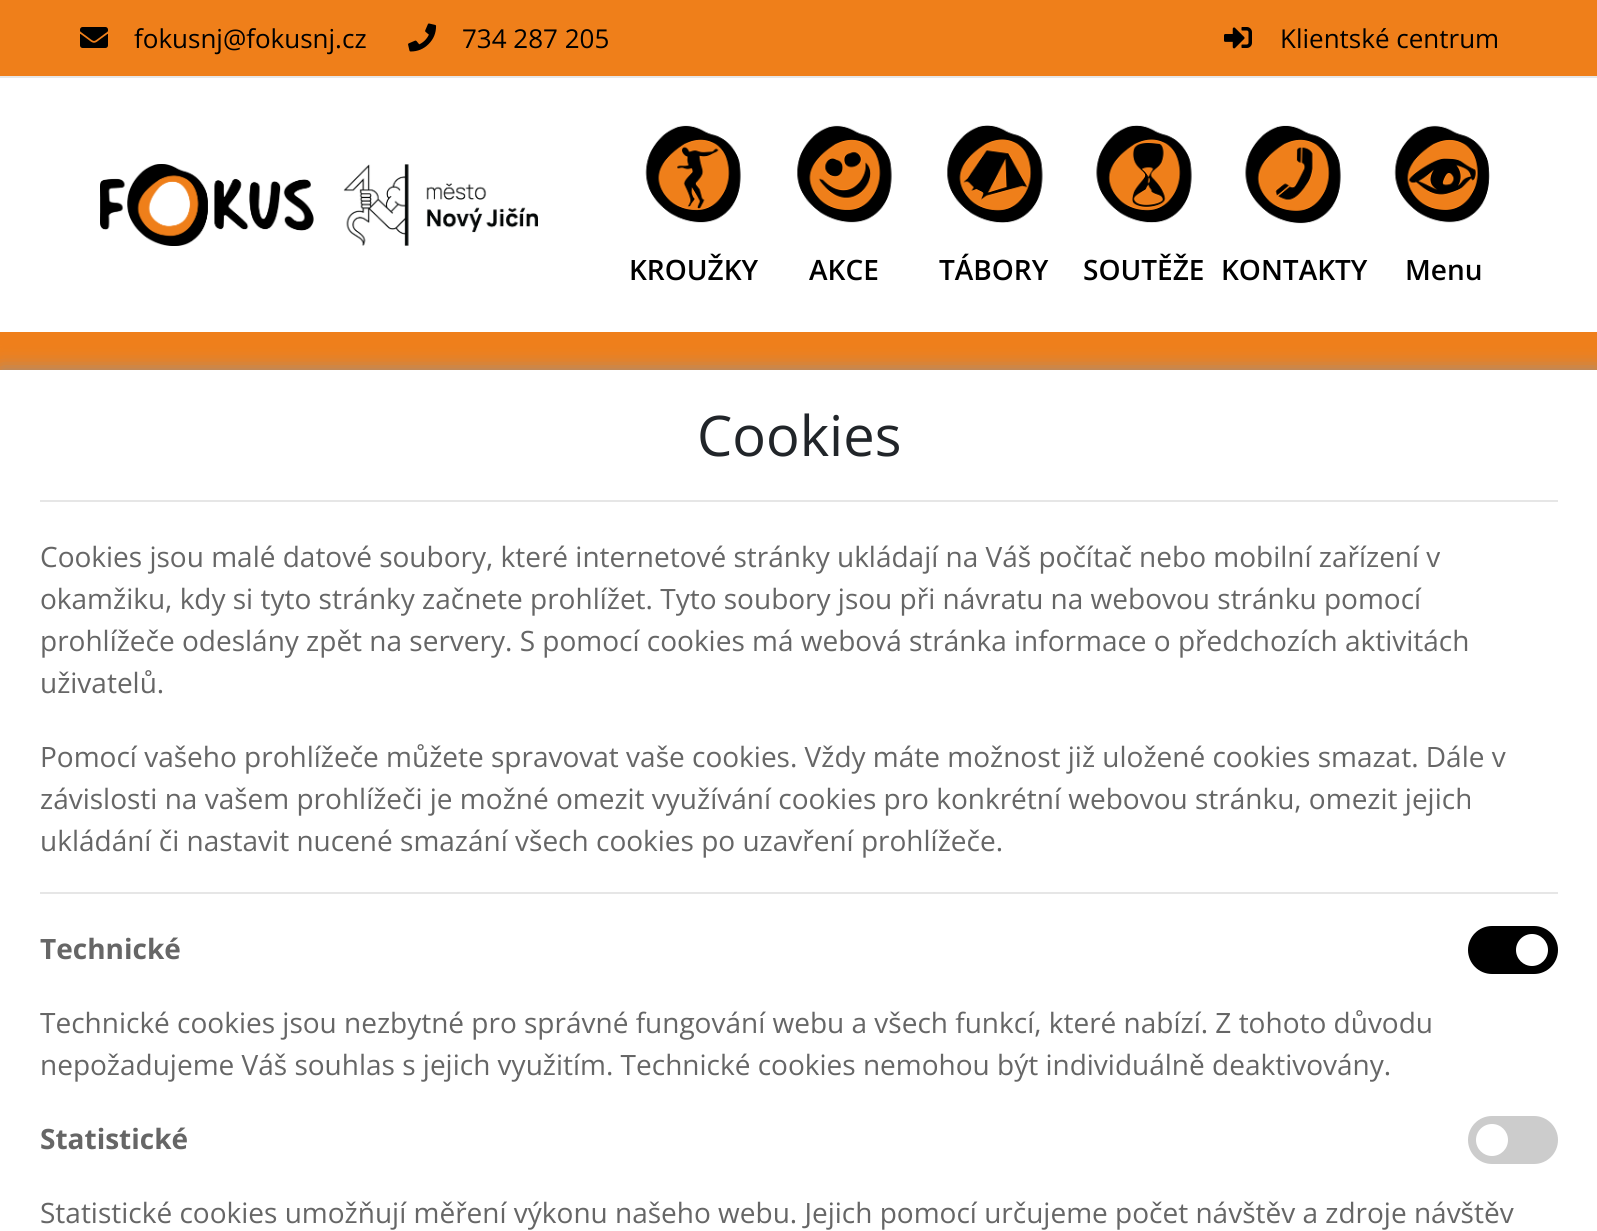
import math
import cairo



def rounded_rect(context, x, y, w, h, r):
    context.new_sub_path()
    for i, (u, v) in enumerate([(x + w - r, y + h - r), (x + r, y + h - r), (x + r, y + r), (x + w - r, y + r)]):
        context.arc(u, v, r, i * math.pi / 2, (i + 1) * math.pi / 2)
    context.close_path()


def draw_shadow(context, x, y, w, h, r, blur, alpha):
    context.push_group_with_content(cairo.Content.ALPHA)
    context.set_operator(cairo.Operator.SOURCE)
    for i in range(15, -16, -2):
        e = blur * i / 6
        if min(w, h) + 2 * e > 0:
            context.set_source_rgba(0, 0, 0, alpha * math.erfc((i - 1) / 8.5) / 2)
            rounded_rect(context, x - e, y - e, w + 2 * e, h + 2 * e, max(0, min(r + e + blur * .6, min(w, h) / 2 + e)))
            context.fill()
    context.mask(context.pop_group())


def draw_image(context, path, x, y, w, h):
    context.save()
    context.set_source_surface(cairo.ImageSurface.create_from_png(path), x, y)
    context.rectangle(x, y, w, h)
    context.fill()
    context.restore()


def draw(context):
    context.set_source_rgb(1, 1, 1)
    context.paint()
    context.set_source_rgb(239 / 255, 127 / 255, 26 / 255)
    context.rectangle(0, 0, 1597, 76)
    context.fill()
    context.set_source_rgb(231 / 255, 231 / 255, 231 / 255)
    context.rectangle(0, 76, 1597, 2)
    context.fill()
    draw_image(context, "images/1.png", 80, 27, 28, 21)
    draw_image(context, "images/2.png", 408, 23, 29, 29)
    draw_image(context, "images/3.png", 1224, 27, 28, 22)
    draw_image(context, "images/4.png", 100, 164, 438, 82)
    draw_image(context, "images/5.png", 645, 125, 96, 98)
    draw_image(context, "images/6.png", 797, 125, 95, 98)
    draw_image(context, "images/7.png", 947, 125, 96, 98)
    draw_image(context, "images/8.png", 1096, 125, 96, 98)
    draw_image(context, "images/9.png", 1245, 125, 96, 99)
    draw_image(context, "images/10.png", 1394, 125, 96, 98)
    context.set_source_rgb(239 / 255, 127 / 255, 27 / 255)
    context.rectangle(0, 332, 1597, 38)
    context.fill()
    context.set_source_rgb(149 / 255, 146 / 255, 143 / 255)
    draw_shadow(context, 0, 370, 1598, 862, 0, 10, 1)
    context.set_source_rgb(1, 1, 1)
    context.rectangle(0, 370, 1597, 861)
    context.fill()
    context.set_source_rgb(230 / 255, 230 / 255, 230 / 255)
    context.rectangle(40, 500, 1518, 2)
    context.fill()
    context.rectangle(40, 892, 1518, 2)
    context.fill()
    context.set_source_rgb(0, 0, 0)
    rounded_rect(context, 1468, 926, 90, 48, 24)
    context.fill()
    context.set_source_rgb(1, 1, 1)
    context.arc(1532, 950, 16, 0, 2 * math.pi)
    context.fill()
    context.set_source_rgb(204 / 255, 204 / 255, 204 / 255)
    rounded_rect(context, 1468, 1116, 90, 48, 24)
    context.fill()
    context.set_source_rgb(1, 1, 1)
    context.arc(1492, 1140, 16, 0, 2 * math.pi)
    context.fill()
    context.select_font_face("Open Sans")
    context.set_font_size(26)
    context.set_source_rgb(0, 0, 0)
    context.move_to(134, 48)
    context.show_text("fokusnj@fokusnj.cz")
    context.move_to(462, 48)
    context.show_text("734 287 205")
    context.move_to(1280, 48)
    context.show_text("Klientské centrum")
    context.select_font_face("Open Sans SemiBold")
    context.set_font_size(28)
    context.move_to(629, 280)
    context.show_text("KROUŽKY")
    context.move_to(809, 280)
    context.show_text("AKCE")
    context.move_to(939, 280)
    context.show_text("TÁBORY")
    context.move_to(1083, 280)
    context.show_text("SOUTĚŽE")
    context.move_to(1221, 280)
    context.show_text("KONTAKTY")
    context.move_to(1405, 280)
    context.show_text("Menu")
    context.select_font_face("Open Sans")
    context.set_font_size(56)
    context.set_source_rgb(33 / 255, 37 / 255, 41 / 255)
    context.move_to(697, 456)
    context.show_text("Cookies")
    context.set_font_size(28)
    context.set_source_rgb(102 / 255, 102 / 255, 102 / 255)
    context.move_to(40, 567)
    context.show_text("Cookies jsou malé datové soubory, které internetové stránky ukládají na Váš počítač nebo mobilní zařízení v")
    context.move_to(40, 609)
    context.show_text("okamžiku, kdy si tyto stránky začnete prohlížet. Tyto soubory jsou při návratu na webovou stránku pomocí")
    context.move_to(40, 651)
    context.show_text("prohlížeče odeslány zpět na servery. S pomocí cookies má webová stránka informace o předchozích aktivitách")
    context.move_to(40, 693)
    context.show_text("uživatelů.")
    context.move_to(40, 767)
    context.show_text("Pomocí vašeho prohlížeče můžete spravovat vaše cookies. Vždy máte možnost již uložené cookies smazat. Dále v")
    context.move_to(40, 809)
    context.show_text("závislosti na vašem prohlížeči je možné omezit využívání cookies pro konkrétní webovou stránku, omezit jejich")
    context.move_to(40, 851)
    context.show_text("ukládání či nastavit nucené smazání všech cookies po uzavření prohlížeče.")
    context.select_font_face("Open Sans", cairo.FontSlant.NORMAL, cairo.FontWeight.BOLD)
    context.move_to(40, 959)
    context.show_text("Technické")
    context.select_font_face("Open Sans")
    context.move_to(40, 1033)
    context.show_text("Technické cookies jsou nezbytné pro správné fungování webu a všech funkcí, které nabízí. Z tohoto důvodu")
    context.move_to(40, 1075)
    context.show_text("nepožadujeme Váš souhlas s jejich využitím. Technické cookies nemohou být individuálně deaktivovány.")
    context.select_font_face("Open Sans", cairo.FontSlant.NORMAL, cairo.FontWeight.BOLD)
    context.move_to(40, 1149)
    context.show_text("Statistické")
    context.select_font_face("Open Sans")
    context.move_to(40, 1223)
    context.show_text("Statistické cookies umožňují měření výkonu našeho webu. Jejich pomocí určujeme počet návštěv a zdroje návštěv")


surface = cairo.ImageSurface(cairo.Format.RGB24, 1597, 1231)
context = cairo.Context(surface)
options = cairo.FontOptions()
options.set_hint_metrics(cairo.HintMetrics.OFF)
options.set_hint_style(cairo.HintStyle.NONE)
context.set_font_options(options)
context.set_miter_limit(4)
draw(context)
surface.write_to_png("out.png")
